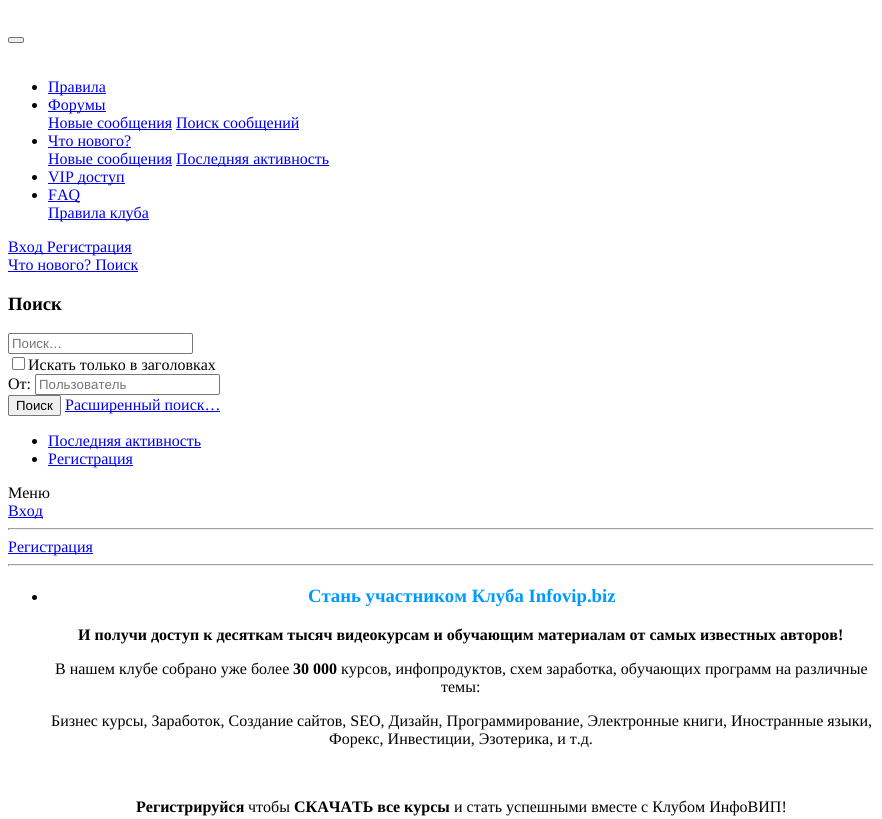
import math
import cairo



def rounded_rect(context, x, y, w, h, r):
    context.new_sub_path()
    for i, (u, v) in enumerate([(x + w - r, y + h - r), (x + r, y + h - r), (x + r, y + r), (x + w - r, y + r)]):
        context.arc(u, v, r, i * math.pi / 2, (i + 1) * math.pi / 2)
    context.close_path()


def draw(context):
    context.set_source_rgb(1, 1, 1)
    context.paint()
    context.set_source_rgb(239 / 255, 239 / 255, 239 / 255)
    rounded_rect(context, 8.5, 37.5, 15, 5, 1.5)
    context.fill_preserve()
    context.set_source_rgb(118 / 255, 118 / 255, 118 / 255)
    context.set_line_width(1)
    context.stroke()
    context.set_source_rgb(0, 0, 0)
    context.arc(34.5, 87.5, 2.5, 0, 2 * math.pi)
    context.fill()
    context.set_source_rgb(0, 0, 238 / 255)
    context.rectangle(48, 93, 58, 1)
    context.fill()
    context.set_source_rgb(0, 0, 0)
    context.arc(34.5, 105.5, 2.5, 0, 2 * math.pi)
    context.fill()
    context.set_source_rgb(0, 0, 238 / 255)
    context.rectangle(48, 111, 58, 1)
    context.fill()
    context.rectangle(48, 129, 124, 1)
    context.fill()
    context.rectangle(176, 129, 123, 1)
    context.fill()
    context.set_source_rgb(0, 0, 0)
    context.arc(34.5, 141.5, 2.5, 0, 2 * math.pi)
    context.fill()
    context.set_source_rgb(0, 0, 238 / 255)
    context.rectangle(48, 147, 83, 1)
    context.fill()
    context.rectangle(48, 165, 124, 1)
    context.fill()
    context.rectangle(176, 165, 153, 1)
    context.fill()
    context.set_source_rgb(0, 0, 0)
    context.arc(34.5, 177.5, 2.5, 0, 2 * math.pi)
    context.fill()
    context.set_source_rgb(0, 0, 238 / 255)
    context.rectangle(48, 183, 77, 1)
    context.fill()
    context.set_source_rgb(0, 0, 0)
    context.arc(34.5, 195.5, 2.5, 0, 2 * math.pi)
    context.fill()
    context.set_source_rgb(0, 0, 238 / 255)
    context.rectangle(48, 201, 32, 1)
    context.fill()
    context.rectangle(48, 219, 101, 1)
    context.fill()
    context.rectangle(8, 253, 124, 1)
    context.fill()
    context.rectangle(8, 271, 130, 1)
    context.fill()
    rounded_rect(context, 8.5, 333.5, 184, 20, 1.5)
    context.set_source_rgb(118 / 255, 118 / 255, 118 / 255)
    context.stroke()
    rounded_rect(context, 12.5, 357.5, 12, 12, 1.5)
    context.stroke()
    rounded_rect(context, 35.5, 374.5, 184, 20, 1.5)
    context.stroke()
    context.set_source_rgb(239 / 255, 239 / 255, 239 / 255)
    rounded_rect(context, 8.5, 395.5, 52, 20, 1.5)
    context.fill_preserve()
    context.set_source_rgb(118 / 255, 118 / 255, 118 / 255)
    context.stroke()
    context.set_source_rgb(0, 0, 238 / 255)
    context.rectangle(65, 411, 155, 1)
    context.fill()
    context.set_source_rgb(0, 0, 0)
    context.arc(34.5, 441.5, 2.5, 0, 2 * math.pi)
    context.fill()
    context.set_source_rgb(0, 0, 238 / 255)
    context.rectangle(48, 447, 153, 1)
    context.fill()
    context.set_source_rgb(0, 0, 0)
    context.arc(34.5, 459.5, 2.5, 0, 2 * math.pi)
    context.fill()
    context.set_source_rgb(0, 0, 238 / 255)
    context.rectangle(48, 465, 85, 1)
    context.fill()
    context.rectangle(8, 517, 35, 1)
    context.fill()
    context.set_source_rgb(159 / 255, 159 / 255, 159 / 255)
    context.rectangle(8, 528, 866, 1)
    context.fill()
    context.set_source_rgb(238 / 255, 238 / 255, 238 / 255)
    context.rectangle(873, 528, 1, 2)
    context.fill()
    context.rectangle(8, 529, 866, 1)
    context.fill()
    context.set_source_rgb(159 / 255, 159 / 255, 159 / 255)
    context.rectangle(8, 528, 1, 2)
    context.fill()
    context.set_source_rgb(0, 0, 238 / 255)
    context.rectangle(8, 553, 85, 1)
    context.fill()
    context.set_source_rgb(159 / 255, 159 / 255, 159 / 255)
    context.rectangle(8, 564, 866, 1)
    context.fill()
    context.set_source_rgb(238 / 255, 238 / 255, 238 / 255)
    context.rectangle(873, 564, 1, 2)
    context.fill()
    context.rectangle(8, 565, 866, 1)
    context.fill()
    context.set_source_rgb(159 / 255, 159 / 255, 159 / 255)
    context.rectangle(8, 564, 1, 2)
    context.fill()
    context.set_source_rgb(0, 0, 0)
    context.arc(34.5, 597.5, 2.5, 0, 2 * math.pi)
    context.fill()
    context.select_font_face("Liberation Serif")
    context.set_font_size(16)
    context.set_source_rgb(0, 0, 238 / 255)
    context.move_to(48, 92)
    context.show_text("Правила")
    context.move_to(48, 110)
    context.show_text("Форумы")
    context.move_to(48, 128)
    context.show_text("Новые сообщения")
    context.move_to(176, 128)
    context.show_text("Поиск сообщений")
    context.move_to(48, 146)
    context.show_text("Что нового?")
    context.move_to(48, 164)
    context.show_text("Новые сообщения")
    context.move_to(176, 164)
    context.show_text("Последняя активность")
    context.move_to(48, 182)
    context.show_text("VIP доступ")
    context.move_to(48, 200)
    context.show_text("FAQ")
    context.move_to(48, 218)
    context.show_text("Правила клуба")
    context.move_to(8, 252)
    context.show_text("Вход Регистрация")
    context.move_to(8, 270)
    context.show_text("Что нового? Поиск")
    context.select_font_face("Liberation Serif", cairo.FontSlant.NORMAL, cairo.FontWeight.BOLD)
    context.set_font_size(18.75)
    context.set_source_rgb(0, 0, 0)
    context.move_to(8, 310)
    context.show_text("Поиск")
    context.select_font_face("Liberation Sans")
    context.set_font_size(13.25)
    context.set_source_rgb(117 / 255, 117 / 255, 117 / 255)
    context.move_to(12, 348)
    context.show_text("Поиск…")
    context.select_font_face("Liberation Serif")
    context.set_font_size(16)
    context.set_source_rgb(0, 0, 0)
    context.move_to(28, 370)
    context.show_text("Искать только в заголовках")
    context.move_to(8, 389)
    context.show_text("От:")
    context.select_font_face("Liberation Sans")
    context.set_font_size(13.25)
    context.set_source_rgb(117 / 255, 117 / 255, 117 / 255)
    context.move_to(39, 389)
    context.show_text("Пользователь")
    context.set_source_rgb(0, 0, 0)
    context.move_to(16, 410)
    context.show_text("Поиск")
    context.select_font_face("Liberation Serif")
    context.set_font_size(16)
    context.set_source_rgb(0, 0, 238 / 255)
    context.move_to(65, 410)
    context.show_text("Расширенный поиск…")
    context.move_to(48, 446)
    context.show_text("Последняя активность")
    context.move_to(48, 464)
    context.show_text("Регистрация")
    context.set_source_rgb(0, 0, 0)
    context.move_to(8, 498)
    context.show_text("Меню")
    context.set_source_rgb(0, 0, 238 / 255)
    context.move_to(8, 516)
    context.show_text("Вход")
    context.move_to(8, 552)
    context.show_text("Регистрация")
    context.select_font_face("Liberation Serif", cairo.FontSlant.NORMAL, cairo.FontWeight.BOLD)
    context.set_font_size(18.75)
    context.set_source_rgb(0, 153 / 255, 1)
    context.move_to(308, 602)
    context.show_text("Стань участником Клуба Infovip.biz")
    context.set_font_size(16)
    context.set_source_rgb(0, 0, 0)
    context.move_to(78, 640)
    context.show_text("И получи доступ к десяткам тысяч видеокурсам и обучающим материалам от самых известных авторов!")
    context.select_font_face("Liberation Serif")
    context.move_to(55, 674)
    context.show_text("В нашем клубе собрано уже более")
    context.select_font_face("Liberation Serif", cairo.FontSlant.NORMAL, cairo.FontWeight.BOLD)
    context.move_to(293, 674)
    context.show_text("30 000")
    context.select_font_face("Liberation Serif")
    context.move_to(341, 674)
    context.show_text("курсов, инфопродуктов, схем заработка, обучающих программ на различные")
    context.move_to(441, 692)
    context.show_text("темы:")
    context.move_to(51, 726)
    context.show_text("Бизнес курсы, Заработок, Создание сайтов, SEO, Дизайн, Программирование, Электронные книги, Иностранные языки,")
    context.move_to(329, 744)
    context.show_text("Форекс, Инвестиции, Эзотерика, и т.д.")
    context.select_font_face("Liberation Serif", cairo.FontSlant.NORMAL, cairo.FontWeight.BOLD)
    context.move_to(136, 812)
    context.show_text("Регистрируйся")
    context.select_font_face("Liberation Serif")
    context.move_to(248, 812)
    context.show_text("чтобы")
    context.select_font_face("Liberation Serif", cairo.FontSlant.NORMAL, cairo.FontWeight.BOLD)
    context.move_to(294, 812)
    context.show_text("СКАЧАТЬ все курсы")
    context.select_font_face("Liberation Serif")
    context.move_to(454, 812)
    context.show_text("и стать успешными вместе с Клубом ИнфоВИП!")


surface = cairo.ImageSurface(cairo.Format.RGB24, 882, 819)
context = cairo.Context(surface)
options = cairo.FontOptions()
options.set_hint_metrics(cairo.HintMetrics.OFF)
options.set_hint_style(cairo.HintStyle.NONE)
context.set_font_options(options)
context.set_miter_limit(4)
draw(context)
surface.write_to_png("out.png")
